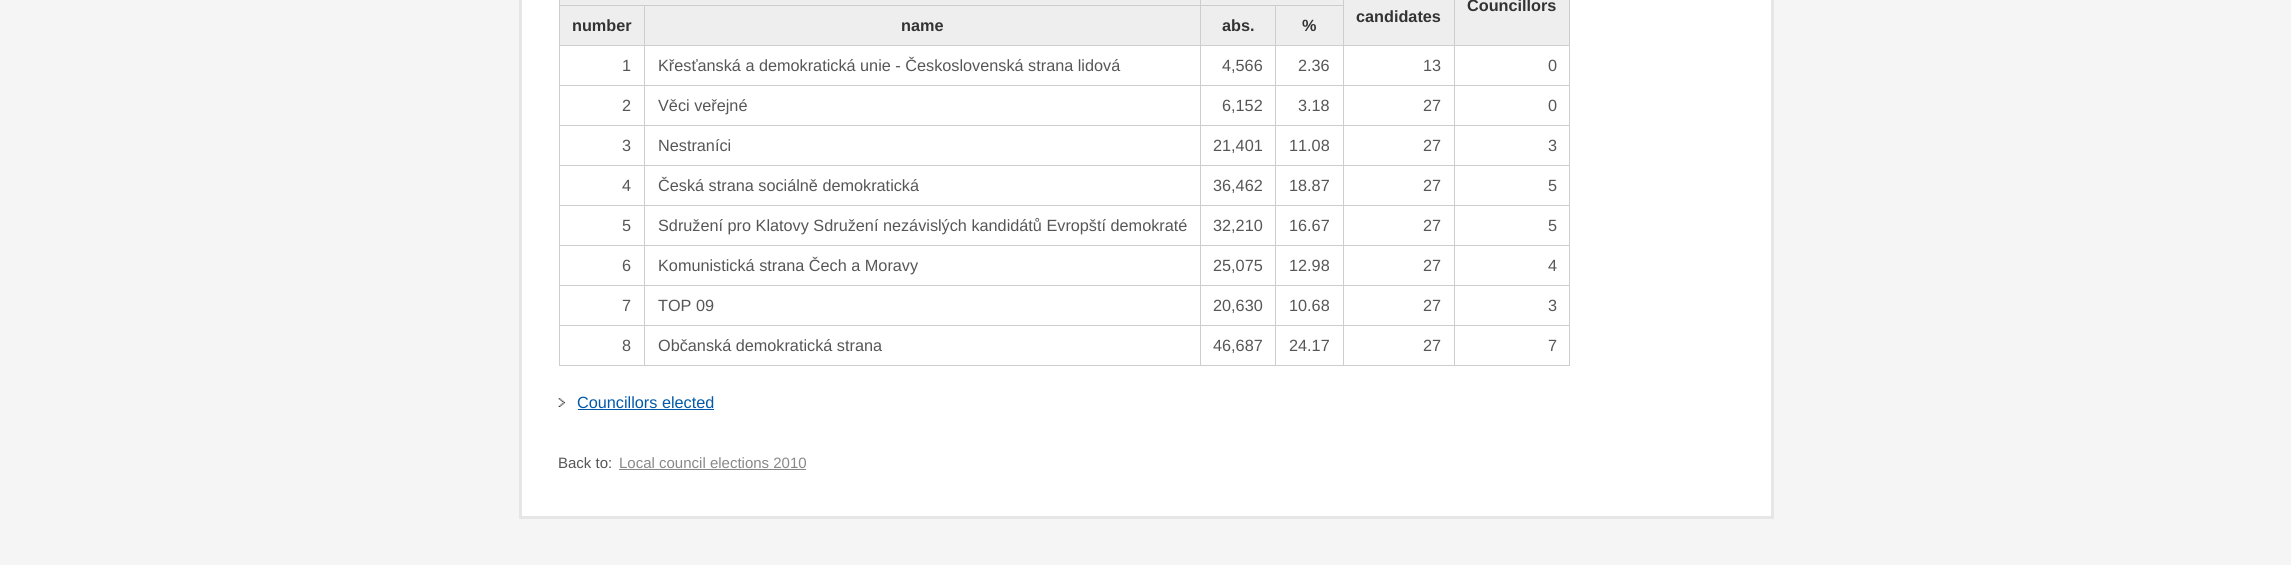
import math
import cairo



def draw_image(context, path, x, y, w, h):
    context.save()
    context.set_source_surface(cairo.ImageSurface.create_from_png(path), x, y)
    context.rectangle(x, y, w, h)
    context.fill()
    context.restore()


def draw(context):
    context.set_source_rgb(245 / 255, 245 / 255, 245 / 255)
    context.paint()
    context.set_source_rgb(1, 1, 1)
    context.rectangle(522, 0, 1249, 516)
    context.fill()
    context.set_source_rgb(230 / 255, 230 / 255, 230 / 255)
    context.rectangle(1771, 0, 3, 519)
    context.fill()
    context.rectangle(519, 516, 1255, 3)
    context.fill()
    context.rectangle(519, 0, 3, 519)
    context.fill()
    context.set_source_rgb(205 / 255, 205 / 255, 205 / 255)
    context.rectangle(1569, 0, 1, 366)
    context.fill()
    context.rectangle(559, 365, 1011, 1)
    context.fill()
    context.set_source_rgb(238 / 255, 238 / 255, 238 / 255)
    context.rectangle(559, 0, 784, 5)
    context.fill()
    context.set_source_rgb(205 / 255, 205 / 255, 205 / 255)
    context.rectangle(559, 0, 1, 366)
    context.fill()
    context.rectangle(1275, 5, 69, 1)
    context.fill()
    context.rectangle(1454, 45, 116, 1)
    context.fill()
    context.rectangle(1454, 85, 116, 1)
    context.fill()
    context.rectangle(1454, 125, 116, 1)
    context.fill()
    context.rectangle(1454, 165, 116, 1)
    context.fill()
    context.rectangle(1454, 205, 116, 1)
    context.fill()
    context.rectangle(1454, 245, 116, 1)
    context.fill()
    context.rectangle(1454, 285, 116, 1)
    context.fill()
    context.rectangle(1454, 325, 116, 1)
    context.fill()
    context.rectangle(1454, 325, 1, 41)
    context.fill()
    context.rectangle(1343, 325, 112, 1)
    context.fill()
    context.rectangle(1454, 285, 1, 41)
    context.fill()
    context.rectangle(1343, 285, 112, 1)
    context.fill()
    context.rectangle(1454, 245, 1, 41)
    context.fill()
    context.rectangle(1343, 245, 112, 1)
    context.fill()
    context.rectangle(1454, 205, 1, 41)
    context.fill()
    context.rectangle(1343, 205, 112, 1)
    context.fill()
    context.rectangle(1454, 165, 1, 41)
    context.fill()
    context.rectangle(1343, 165, 112, 1)
    context.fill()
    context.rectangle(1454, 125, 1, 41)
    context.fill()
    context.rectangle(1343, 125, 112, 1)
    context.fill()
    context.rectangle(1454, 85, 1, 41)
    context.fill()
    context.rectangle(1343, 85, 112, 1)
    context.fill()
    context.rectangle(1454, 45, 1, 41)
    context.fill()
    context.rectangle(1343, 45, 112, 1)
    context.fill()
    context.rectangle(1343, 325, 1, 41)
    context.fill()
    context.rectangle(1275, 325, 69, 1)
    context.fill()
    context.rectangle(1343, 285, 1, 41)
    context.fill()
    context.rectangle(1275, 285, 69, 1)
    context.fill()
    context.rectangle(1343, 245, 1, 41)
    context.fill()
    context.rectangle(1275, 245, 69, 1)
    context.fill()
    context.rectangle(1343, 205, 1, 41)
    context.fill()
    context.rectangle(1275, 205, 69, 1)
    context.fill()
    context.rectangle(1343, 165, 1, 41)
    context.fill()
    context.rectangle(1275, 165, 69, 1)
    context.fill()
    context.rectangle(1343, 125, 1, 41)
    context.fill()
    context.rectangle(1275, 125, 69, 1)
    context.fill()
    context.rectangle(1343, 85, 1, 41)
    context.fill()
    context.rectangle(1275, 85, 69, 1)
    context.fill()
    context.rectangle(1343, 45, 1, 41)
    context.fill()
    context.rectangle(1275, 45, 69, 1)
    context.fill()
    context.rectangle(1275, 325, 1, 41)
    context.fill()
    context.rectangle(1200, 325, 76, 1)
    context.fill()
    context.rectangle(1275, 285, 1, 41)
    context.fill()
    context.rectangle(1200, 285, 76, 1)
    context.fill()
    context.rectangle(1275, 245, 1, 41)
    context.fill()
    context.rectangle(1200, 245, 76, 1)
    context.fill()
    context.rectangle(1275, 205, 1, 41)
    context.fill()
    context.rectangle(1200, 205, 76, 1)
    context.fill()
    context.rectangle(1275, 165, 1, 41)
    context.fill()
    context.rectangle(1200, 165, 76, 1)
    context.fill()
    context.rectangle(1275, 125, 1, 41)
    context.fill()
    context.rectangle(1200, 125, 76, 1)
    context.fill()
    context.rectangle(1275, 85, 1, 41)
    context.fill()
    context.rectangle(1200, 85, 76, 1)
    context.fill()
    context.rectangle(1275, 45, 1, 41)
    context.fill()
    context.rectangle(1200, 45, 76, 1)
    context.fill()
    context.rectangle(1275, 5, 1, 41)
    context.fill()
    context.rectangle(1200, 5, 76, 1)
    context.fill()
    context.rectangle(1200, 325, 1, 41)
    context.fill()
    context.rectangle(644, 325, 557, 1)
    context.fill()
    context.rectangle(1200, 285, 1, 41)
    context.fill()
    context.rectangle(644, 285, 557, 1)
    context.fill()
    context.rectangle(1200, 245, 1, 41)
    context.fill()
    context.rectangle(644, 245, 557, 1)
    context.fill()
    context.rectangle(1200, 205, 1, 41)
    context.fill()
    context.rectangle(644, 205, 557, 1)
    context.fill()
    context.rectangle(1200, 165, 1, 41)
    context.fill()
    context.rectangle(644, 165, 557, 1)
    context.fill()
    context.rectangle(1200, 125, 1, 41)
    context.fill()
    context.rectangle(644, 125, 557, 1)
    context.fill()
    context.rectangle(1200, 85, 1, 41)
    context.fill()
    context.rectangle(644, 85, 557, 1)
    context.fill()
    context.rectangle(1200, 45, 1, 41)
    context.fill()
    context.rectangle(644, 45, 557, 1)
    context.fill()
    context.rectangle(1200, 5, 1, 41)
    context.fill()
    context.rectangle(644, 5, 557, 1)
    context.fill()
    context.rectangle(1200, 0, 1, 6)
    context.fill()
    context.set_source_rgb(238 / 255, 238 / 255, 238 / 255)
    context.rectangle(1455, 0, 114, 45)
    context.fill()
    context.set_source_rgb(205 / 255, 205 / 255, 205 / 255)
    context.rectangle(1454, 0, 1, 46)
    context.fill()
    context.set_source_rgb(238 / 255, 238 / 255, 238 / 255)
    context.rectangle(1344, 0, 110, 45)
    context.fill()
    context.set_source_rgb(205 / 255, 205 / 255, 205 / 255)
    context.rectangle(1343, 0, 1, 46)
    context.fill()
    context.set_source_rgb(238 / 255, 238 / 255, 238 / 255)
    context.rectangle(560, 6, 84, 39)
    context.fill()
    context.set_source_rgb(205 / 255, 205 / 255, 205 / 255)
    context.rectangle(644, 325, 1, 41)
    context.fill()
    context.rectangle(559, 325, 86, 1)
    context.fill()
    context.rectangle(644, 285, 1, 41)
    context.fill()
    context.rectangle(559, 285, 86, 1)
    context.fill()
    context.rectangle(644, 245, 1, 41)
    context.fill()
    context.rectangle(559, 245, 86, 1)
    context.fill()
    context.rectangle(644, 205, 1, 41)
    context.fill()
    context.rectangle(559, 205, 86, 1)
    context.fill()
    context.rectangle(644, 165, 1, 41)
    context.fill()
    context.rectangle(559, 165, 86, 1)
    context.fill()
    context.rectangle(644, 125, 1, 41)
    context.fill()
    context.rectangle(559, 125, 86, 1)
    context.fill()
    context.rectangle(644, 85, 1, 41)
    context.fill()
    context.rectangle(559, 85, 86, 1)
    context.fill()
    context.rectangle(644, 45, 1, 41)
    context.fill()
    context.rectangle(559, 45, 86, 1)
    context.fill()
    context.rectangle(644, 5, 1, 41)
    context.fill()
    context.rectangle(559, 5, 86, 1)
    context.fill()
    context.set_source_rgb(238 / 255, 238 / 255, 238 / 255)
    context.rectangle(645, 6, 555, 39)
    context.fill()
    context.rectangle(1201, 6, 74, 39)
    context.fill()
    context.rectangle(1276, 6, 67, 39)
    context.fill()
    draw_image(context, "images/1.png", 558, 398, 7, 9)
    context.set_source_rgb(0, 89 / 255, 169 / 255)
    context.rectangle(578, 409, 136, 1)
    context.fill()
    context.set_source_rgb(136 / 255, 136 / 255, 136 / 255)
    context.rectangle(619, 469, 187, 1)
    context.fill()
    context.select_font_face("Liberation Sans", cairo.FontSlant.NORMAL, cairo.FontWeight.BOLD)
    context.set_font_size(16.25)
    context.set_source_rgb(51 / 255, 51 / 255, 51 / 255)
    context.move_to(1467, 11)
    context.show_text("Councillors")
    context.move_to(1356, 22)
    context.show_text("candidates")
    context.move_to(572, 31)
    context.show_text("number")
    context.move_to(901, 31)
    context.show_text("name")
    context.move_to(1222, 31)
    context.show_text("abs.")
    context.move_to(1302, 31)
    context.show_text("%")
    context.select_font_face("Liberation Sans")
    context.set_source_rgb(86 / 255, 86 / 255, 86 / 255)
    context.move_to(622, 71)
    context.show_text("1")
    context.move_to(658, 71)
    context.show_text("Křesťanská a demokratická unie - Československá strana lidová")
    context.move_to(1222, 71)
    context.show_text("4,566")
    context.move_to(1298, 71)
    context.show_text("2.36")
    context.move_to(1423, 71)
    context.show_text("13")
    context.move_to(1548, 71)
    context.show_text("0")
    context.move_to(622, 111)
    context.show_text("2")
    context.move_to(658, 111)
    context.show_text("Věci veřejné")
    context.move_to(1222, 111)
    context.show_text("6,152")
    context.move_to(1298, 111)
    context.show_text("3.18")
    context.move_to(1423, 111)
    context.show_text("27")
    context.move_to(1548, 111)
    context.show_text("0")
    context.move_to(622, 151)
    context.show_text("3")
    context.move_to(658, 151)
    context.show_text("Nestraníci")
    context.move_to(1213, 151)
    context.show_text("21,401")
    context.move_to(1289, 151)
    context.show_text("11.08")
    context.move_to(1423, 151)
    context.show_text("27")
    context.move_to(1548, 151)
    context.show_text("3")
    context.move_to(622, 191)
    context.show_text("4")
    context.move_to(658, 191)
    context.show_text("Česká strana sociálně demokratická")
    context.move_to(1213, 191)
    context.show_text("36,462")
    context.move_to(1289, 191)
    context.show_text("18.87")
    context.move_to(1423, 191)
    context.show_text("27")
    context.move_to(1548, 191)
    context.show_text("5")
    context.move_to(622, 231)
    context.show_text("5")
    context.move_to(658, 231)
    context.show_text("Sdružení pro Klatovy Sdružení nezávislých kandidátů Evropští demokraté")
    context.move_to(1213, 231)
    context.show_text("32,210")
    context.move_to(1289, 231)
    context.show_text("16.67")
    context.move_to(1423, 231)
    context.show_text("27")
    context.move_to(1548, 231)
    context.show_text("5")
    context.move_to(622, 271)
    context.show_text("6")
    context.move_to(658, 271)
    context.show_text("Komunistická strana Čech a Moravy")
    context.move_to(1213, 271)
    context.show_text("25,075")
    context.move_to(1289, 271)
    context.show_text("12.98")
    context.move_to(1423, 271)
    context.show_text("27")
    context.move_to(1548, 271)
    context.show_text("4")
    context.move_to(622, 311)
    context.show_text("7")
    context.move_to(658, 311)
    context.show_text("TOP 09")
    context.move_to(1213, 311)
    context.show_text("20,630")
    context.move_to(1289, 311)
    context.show_text("10.68")
    context.move_to(1423, 311)
    context.show_text("27")
    context.move_to(1548, 311)
    context.show_text("3")
    context.move_to(622, 351)
    context.show_text("8")
    context.move_to(658, 351)
    context.show_text("Občanská demokratická strana")
    context.move_to(1213, 351)
    context.show_text("46,687")
    context.move_to(1289, 351)
    context.show_text("24.17")
    context.move_to(1423, 351)
    context.show_text("27")
    context.move_to(1548, 351)
    context.show_text("7")
    context.set_source_rgb(0, 89 / 255, 169 / 255)
    context.move_to(577, 408)
    context.show_text("Councillors elected")
    context.set_font_size(15)
    context.set_source_rgb(86 / 255, 86 / 255, 86 / 255)
    context.move_to(558, 468)
    context.show_text("Back to:")
    context.set_source_rgb(136 / 255, 136 / 255, 136 / 255)
    context.move_to(619, 468)
    context.show_text("Local council elections 2010")


surface = cairo.ImageSurface(cairo.Format.RGB24, 2291, 565)
context = cairo.Context(surface)
options = cairo.FontOptions()
options.set_hint_metrics(cairo.HintMetrics.OFF)
options.set_hint_style(cairo.HintStyle.NONE)
context.set_font_options(options)
context.set_miter_limit(4)
draw(context)
surface.write_to_png("out.png")
